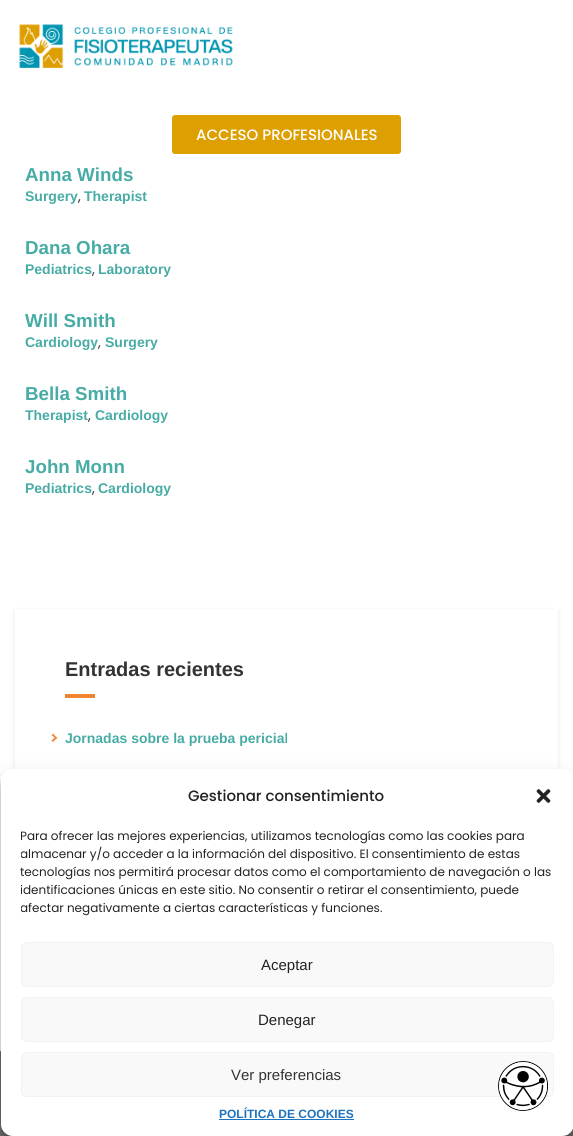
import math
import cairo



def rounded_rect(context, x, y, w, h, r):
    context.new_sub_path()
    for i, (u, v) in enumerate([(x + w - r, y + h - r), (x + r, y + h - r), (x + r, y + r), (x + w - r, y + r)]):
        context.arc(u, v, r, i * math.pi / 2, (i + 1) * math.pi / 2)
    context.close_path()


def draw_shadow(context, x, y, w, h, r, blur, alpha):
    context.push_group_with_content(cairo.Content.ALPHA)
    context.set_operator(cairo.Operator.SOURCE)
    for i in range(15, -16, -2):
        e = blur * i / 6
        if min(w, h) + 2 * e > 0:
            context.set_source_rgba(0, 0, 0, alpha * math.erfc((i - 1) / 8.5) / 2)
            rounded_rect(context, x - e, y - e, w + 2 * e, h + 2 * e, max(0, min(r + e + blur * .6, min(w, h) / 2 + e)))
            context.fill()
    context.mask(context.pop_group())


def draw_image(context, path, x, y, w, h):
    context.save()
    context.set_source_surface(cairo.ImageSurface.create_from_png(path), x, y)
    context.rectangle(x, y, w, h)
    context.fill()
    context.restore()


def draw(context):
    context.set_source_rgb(1, 1, 1)
    context.paint()
    draw_image(context, "images/1.png", 19, 24, 214, 45)
    context.set_source_rgb(222 / 255, 159 / 255, 0)
    rounded_rect(context, 172, 115, 229, 39, 3)
    context.fill()
    context.save()
    context.set_fill_rule(cairo.FillRule.EVEN_ODD)
    context.new_path()
    context.move_to(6, 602)
    context.line_to(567, 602)
    context.line_to(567, 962)
    context.line_to(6, 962)
    context.close_path()
    context.move_to(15, 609)
    context.line_to(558, 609)
    context.line_to(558, 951)
    context.line_to(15, 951)
    context.close_path()
    context.clip()
    context.set_source_rgb(0, 0, 0)
    draw_shadow(context, 15, 611, 543, 342, 0, 2.5, 0.1)
    context.restore()
    context.set_source_rgb(239 / 255, 133 / 255, 53 / 255)
    context.rectangle(65, 694, 30, 4)
    context.fill()
    context.new_path()
    context.move_to(53, 733.5)
    context.line_to(57, 738)
    context.line_to(56, 739)
    context.line_to(51.5, 735)
    context.close_path()
    context.fill()
    context.new_path()
    context.move_to(56, 736.5)
    context.line_to(57, 738)
    context.line_to(53, 742)
    context.line_to(51.5, 740.5)
    context.close_path()
    context.fill()
    context.set_source_rgb(114 / 255, 114 / 255, 114 / 255)
    context.rectangle(0, 1051, 573, 85)
    context.fill()
    context.save()
    context.set_fill_rule(cairo.FillRule.EVEN_ODD)
    context.new_path()
    context.move_to(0, 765)
    context.line_to(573, 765)
    context.line_to(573, 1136)
    context.line_to(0, 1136)
    context.close_path()
    context.move_to(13, 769)
    context.line_to(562, 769)
    context.curve_to(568.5, 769, 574, 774.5, 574, 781)
    context.line_to(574, 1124)
    context.curve_to(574, 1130.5, 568.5, 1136, 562, 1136)
    context.line_to(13, 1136)
    context.curve_to(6.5, 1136, 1, 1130.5, 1, 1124)
    context.line_to(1, 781)
    context.curve_to(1, 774.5, 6.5, 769, 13, 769)
    context.close_path()
    context.clip()
    context.set_source_rgb(0, 0, 0)
    draw_shadow(context, 1, 775, 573, 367, 12, 3, 0.23)
    context.restore()
    context.save()
    context.set_fill_rule(cairo.FillRule.EVEN_ODD)
    context.new_path()
    context.move_to(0, 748)
    context.line_to(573, 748)
    context.line_to(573, 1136)
    context.line_to(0, 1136)
    context.close_path()
    context.move_to(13, 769)
    context.line_to(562, 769)
    context.curve_to(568.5, 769, 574, 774.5, 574, 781)
    context.line_to(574, 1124)
    context.curve_to(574, 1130.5, 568.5, 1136, 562, 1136)
    context.line_to(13, 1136)
    context.curve_to(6.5, 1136, 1, 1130.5, 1, 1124)
    context.line_to(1, 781)
    context.curve_to(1, 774.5, 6.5, 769, 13, 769)
    context.close_path()
    context.clip()
    context.set_source_rgb(0, 0, 0)
    draw_shadow(context, 1, 779, 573, 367, 12, 10, 0.19)
    context.restore()
    context.set_source_rgb(1, 1, 1)
    rounded_rect(context, 1, 769, 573, 367, 12)
    context.fill()
    draw_image(context, "images/2.png", 536, 789, 15, 14)
    context.set_source_rgb(249 / 255, 249 / 255, 249 / 255)
    rounded_rect(context, 21.5, 942.5, 532, 44, 5.5)
    context.fill_preserve()
    context.set_source_rgb(242 / 255, 242 / 255, 242 / 255)
    context.set_line_width(1)
    context.stroke()
    context.set_source_rgb(249 / 255, 249 / 255, 249 / 255)
    rounded_rect(context, 21.5, 997.5, 532, 44, 5.5)
    context.fill_preserve()
    context.set_source_rgb(242 / 255, 242 / 255, 242 / 255)
    context.stroke()
    context.set_source_rgb(249 / 255, 249 / 255, 249 / 255)
    rounded_rect(context, 21.5, 1052.5, 532, 44, 5.5)
    context.fill_preserve()
    context.set_source_rgb(242 / 255, 242 / 255, 242 / 255)
    context.stroke()
    context.set_source_rgb(30 / 255, 115 / 255, 190 / 255)
    context.rectangle(219, 1119, 135, 1)
    context.fill()
    draw_image(context, "images/3.png", 498, 1061, 50, 50)
    context.select_font_face("Poppins Medium")
    context.set_font_size(15)
    context.set_source_rgb(1, 1, 1)
    context.move_to(196, 140)
    context.show_text("ACCESO PROFESIONALES")
    context.select_font_face("Liberation Sans", cairo.FontSlant.NORMAL, cairo.FontWeight.BOLD)
    context.set_font_size(18.75)
    context.set_source_rgb(71 / 255, 172 / 255, 165 / 255)
    context.move_to(25, 181)
    context.show_text("Anna Winds")
    context.set_font_size(14)
    context.move_to(25, 201)
    context.show_text("Surgery")
    context.select_font_face("Poppins")
    context.set_source_rgb(51 / 255, 51 / 255, 51 / 255)
    context.move_to(78, 201)
    context.show_text(",")
    context.select_font_face("Liberation Sans", cairo.FontSlant.NORMAL, cairo.FontWeight.BOLD)
    context.set_source_rgb(71 / 255, 172 / 255, 165 / 255)
    context.move_to(84, 201)
    context.show_text("Therapist")
    context.set_font_size(18.75)
    context.move_to(25, 254)
    context.show_text("Dana Ohara")
    context.set_font_size(14)
    context.move_to(25, 274)
    context.show_text("Pediatrics")
    context.select_font_face("Poppins")
    context.set_source_rgb(51 / 255, 51 / 255, 51 / 255)
    context.move_to(92, 274)
    context.show_text(",")
    context.select_font_face("Liberation Sans", cairo.FontSlant.NORMAL, cairo.FontWeight.BOLD)
    context.set_source_rgb(71 / 255, 172 / 255, 165 / 255)
    context.move_to(98, 274)
    context.show_text("Laboratory")
    context.set_font_size(18.75)
    context.move_to(25, 327)
    context.show_text("Will Smith")
    context.set_font_size(14)
    context.move_to(25, 347)
    context.show_text("Cardiology")
    context.select_font_face("Poppins")
    context.set_source_rgb(51 / 255, 51 / 255, 51 / 255)
    context.move_to(98, 347)
    context.show_text(",")
    context.select_font_face("Liberation Sans", cairo.FontSlant.NORMAL, cairo.FontWeight.BOLD)
    context.set_source_rgb(71 / 255, 172 / 255, 165 / 255)
    context.move_to(105, 347)
    context.show_text("Surgery")
    context.set_font_size(18.75)
    context.move_to(25, 400)
    context.show_text("Bella Smith")
    context.set_font_size(14)
    context.move_to(25, 420)
    context.show_text("Therapist")
    context.select_font_face("Poppins")
    context.set_source_rgb(51 / 255, 51 / 255, 51 / 255)
    context.move_to(88, 420)
    context.show_text(",")
    context.select_font_face("Liberation Sans", cairo.FontSlant.NORMAL, cairo.FontWeight.BOLD)
    context.set_source_rgb(71 / 255, 172 / 255, 165 / 255)
    context.move_to(95, 420)
    context.show_text("Cardiology")
    context.set_font_size(18.75)
    context.move_to(25, 473)
    context.show_text("John Monn")
    context.set_font_size(14)
    context.move_to(25, 493)
    context.show_text("Pediatrics")
    context.select_font_face("Poppins")
    context.set_source_rgb(51 / 255, 51 / 255, 51 / 255)
    context.move_to(92, 493)
    context.show_text(",")
    context.select_font_face("Liberation Sans", cairo.FontSlant.NORMAL, cairo.FontWeight.BOLD)
    context.set_source_rgb(71 / 255, 172 / 255, 165 / 255)
    context.move_to(98, 493)
    context.show_text("Cardiology")
    context.set_font_size(20)
    context.set_source_rgb(51 / 255, 51 / 255, 51 / 255)
    context.move_to(65, 676)
    context.show_text("Entradas recientes")
    context.set_font_size(14)
    context.set_source_rgb(71 / 255, 172 / 255, 165 / 255)
    context.move_to(65, 743)
    context.show_text("Jornadas sobre la prueba pericial")
    context.select_font_face("Poppins Medium")
    context.set_font_size(15)
    context.set_source_rgb(34 / 255, 34 / 255, 34 / 255)
    context.move_to(188, 801)
    context.show_text("Gestionar consentimiento")
    context.save()
    context.rectangle(21, 827, 533, 95)
    context.clip()
    context.select_font_face("Poppins")
    context.set_font_size(12)
    context.move_to(20, 840)
    context.show_text("Para ofrecer las mejores experiencias, utilizamos tecnologías como las cookies para")
    context.move_to(20, 858)
    context.show_text("almacenar y/o acceder a la información del dispositivo. El consentimiento de estas")
    context.restore()
    context.select_font_face("Poppins")
    context.set_font_size(12)
    context.move_to(20, 876)
    context.show_text("tecnologías nos permitirá procesar datos como el comportamiento de navegación o las")
    context.save()
    context.rectangle(21, 827, 533, 95)
    context.clip()
    context.move_to(20, 894)
    context.show_text("identificaciones únicas en este sitio. No consentir o retirar el consentimiento, puede")
    context.move_to(20, 912)
    context.show_text("afectar negativamente a ciertas características y funciones.")
    context.restore()
    context.select_font_face("Liberation Sans")
    context.set_font_size(15)
    context.move_to(261, 970)
    context.show_text("Aceptar")
    context.move_to(258, 1025)
    context.show_text("Denegar")
    context.set_source_rgb(51 / 255, 51 / 255, 51 / 255)
    context.move_to(231, 1080)
    context.show_text("Ver preferencias")
    context.select_font_face("Liberation Sans", cairo.FontSlant.NORMAL, cairo.FontWeight.BOLD)
    context.set_font_size(12)
    context.set_source_rgb(30 / 255, 115 / 255, 190 / 255)
    context.move_to(219, 1118)
    context.show_text("POLÍTICA DE COOKIES")


surface = cairo.ImageSurface(cairo.Format.RGB24, 573, 1136)
context = cairo.Context(surface)
options = cairo.FontOptions()
options.set_hint_metrics(cairo.HintMetrics.OFF)
options.set_hint_style(cairo.HintStyle.NONE)
context.set_font_options(options)
context.set_miter_limit(4)
draw(context)
surface.write_to_png("out.png")
